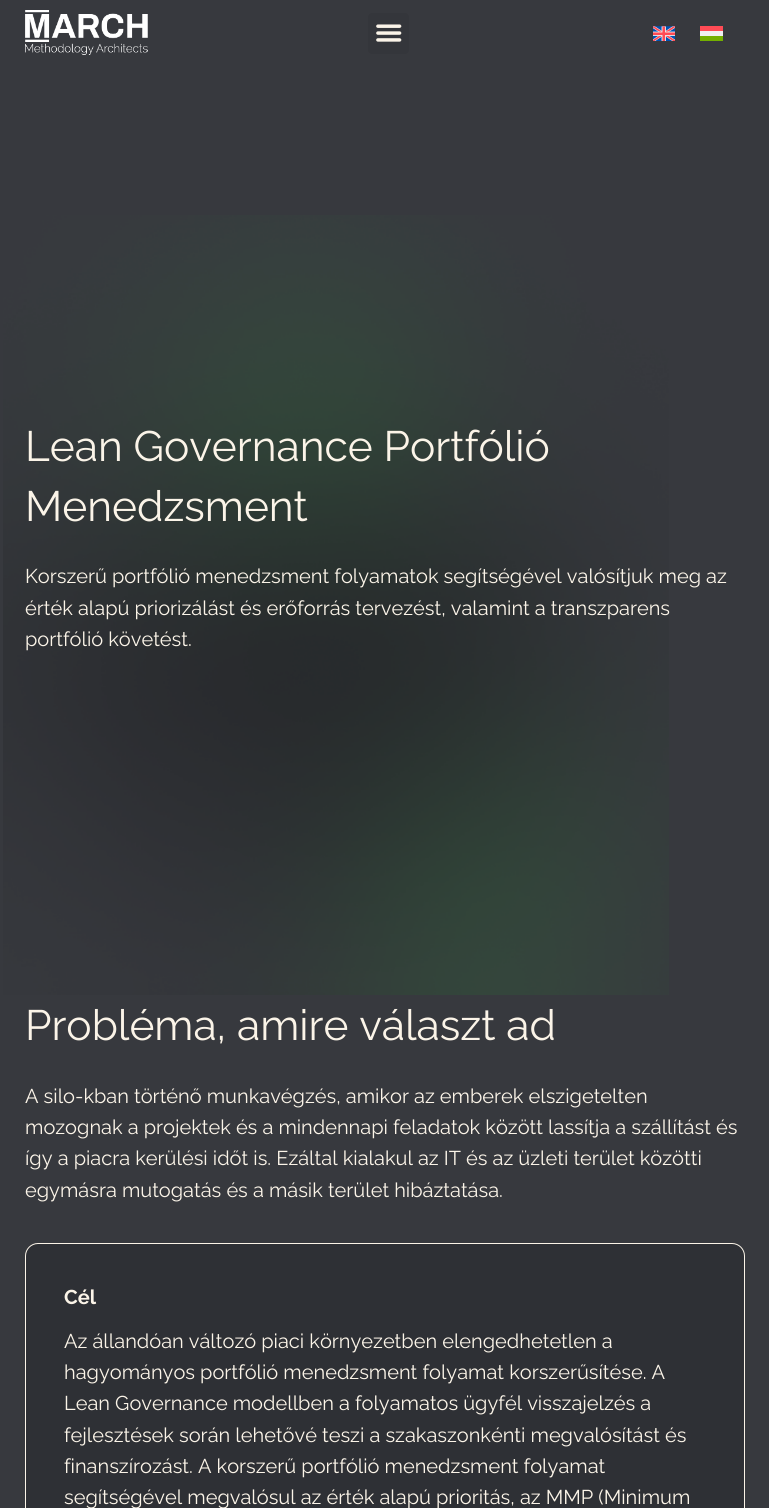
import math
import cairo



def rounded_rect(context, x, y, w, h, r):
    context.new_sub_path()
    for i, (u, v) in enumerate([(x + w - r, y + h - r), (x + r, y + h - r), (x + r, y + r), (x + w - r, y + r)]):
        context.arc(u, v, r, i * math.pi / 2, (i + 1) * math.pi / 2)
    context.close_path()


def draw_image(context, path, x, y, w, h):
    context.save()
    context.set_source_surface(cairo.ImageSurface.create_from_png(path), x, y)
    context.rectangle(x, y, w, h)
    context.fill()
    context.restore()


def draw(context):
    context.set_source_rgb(55 / 255, 57 / 255, 62 / 255)
    context.paint()
    draw_image(context, "images/1.png", 25, 10, 123, 45)
    context.set_source_rgb(52 / 255, 54 / 255, 59 / 255)
    rounded_rect(context, 368, 13, 41, 41, 4)
    context.fill()
    draw_image(context, "images/2.png", 376, 24, 26, 18)
    draw_image(context, "images/3.png", 653, 26, 22, 15)
    context.set_source_rgb(1, 75 / 255, 85 / 255)
    context.rectangle(700, 26, 23, 5)
    context.fill()
    context.set_source_rgb(240 / 255, 240 / 255, 240 / 255)
    context.rectangle(700, 31, 23, 5)
    context.fill()
    context.set_source_rgb(115 / 255, 175 / 255, 0)
    context.rectangle(700, 36, 23, 5)
    context.fill()
    draw_image(context, "images/4.png", 3, 215, 666, 780)
    context.set_source_rgb(46 / 255, 48 / 255, 53 / 255)
    rounded_rect(context, 25.5, 1243.5, 719, 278, 12.5)
    context.fill_preserve()
    context.set_source_rgb(251 / 255, 244 / 255, 232 / 255)
    context.set_line_width(1)
    context.stroke()
    context.select_font_face("Raleway")
    context.set_font_size(42.5)
    context.move_to(25, 461)
    context.show_text("Lean Governance Portfólió")
    context.move_to(25, 521)
    context.show_text("Menedzsment")
    context.set_font_size(20)
    context.move_to(25, 583)
    context.show_text("Korszerű portfólió menedzsment folyamatok segítségével valósítjuk meg az")
    context.move_to(25, 615)
    context.show_text("érték alapú priorizálást és erőforrás tervezést, valamint a transzparens")
    context.move_to(25, 646)
    context.show_text("portfólió követést.")
    context.set_font_size(42.5)
    context.move_to(25, 1040)
    context.show_text("Probléma, amire választ ad")
    context.set_font_size(20)
    context.move_to(25, 1103)
    context.show_text("A silo-kban történő munkavégzés, amikor az emberek elszigetelten")
    context.move_to(25, 1134)
    context.show_text("mozognak a projektek és a mindennapi feladatok között lassítja a szállítást és")
    context.move_to(25, 1165)
    context.show_text("így a piacra kerülési időt is. Ezáltal kialakul az IT és az üzleti terület közötti")
    context.move_to(25, 1197)
    context.show_text("egymásra mutogatás és a másik terület hibáztatása.")
    context.select_font_face("Raleway", cairo.FontSlant.NORMAL, cairo.FontWeight.BOLD)
    context.move_to(64, 1304)
    context.show_text("Cél")
    context.select_font_face("Raleway")
    context.move_to(64, 1348)
    context.show_text("Az állandóan változó piaci környezetben elengedhetetlen a")
    context.move_to(64, 1379)
    context.show_text("hagyományos portfólió menedzsment folyamat korszerűsítése. A")
    context.move_to(64, 1410)
    context.show_text("Lean Governance modellben a folyamatos ügyfél visszajelzés a")
    context.move_to(64, 1442)
    context.show_text("fejlesztések során lehetővé teszi a szakaszonkénti megvalósítást és")
    context.move_to(64, 1473)
    context.show_text("finanszírozást. A korszerű portfólió menedzsment folyamat")
    context.move_to(64, 1504)
    context.show_text("segítségével megvalósul az érték alapú prioritás, az MMP (Minimum")


surface = cairo.ImageSurface(cairo.Format.RGB24, 769, 1508)
context = cairo.Context(surface)
options = cairo.FontOptions()
options.set_hint_metrics(cairo.HintMetrics.OFF)
options.set_hint_style(cairo.HintStyle.NONE)
context.set_font_options(options)
context.set_miter_limit(4)
draw(context)
surface.write_to_png("out.png")
